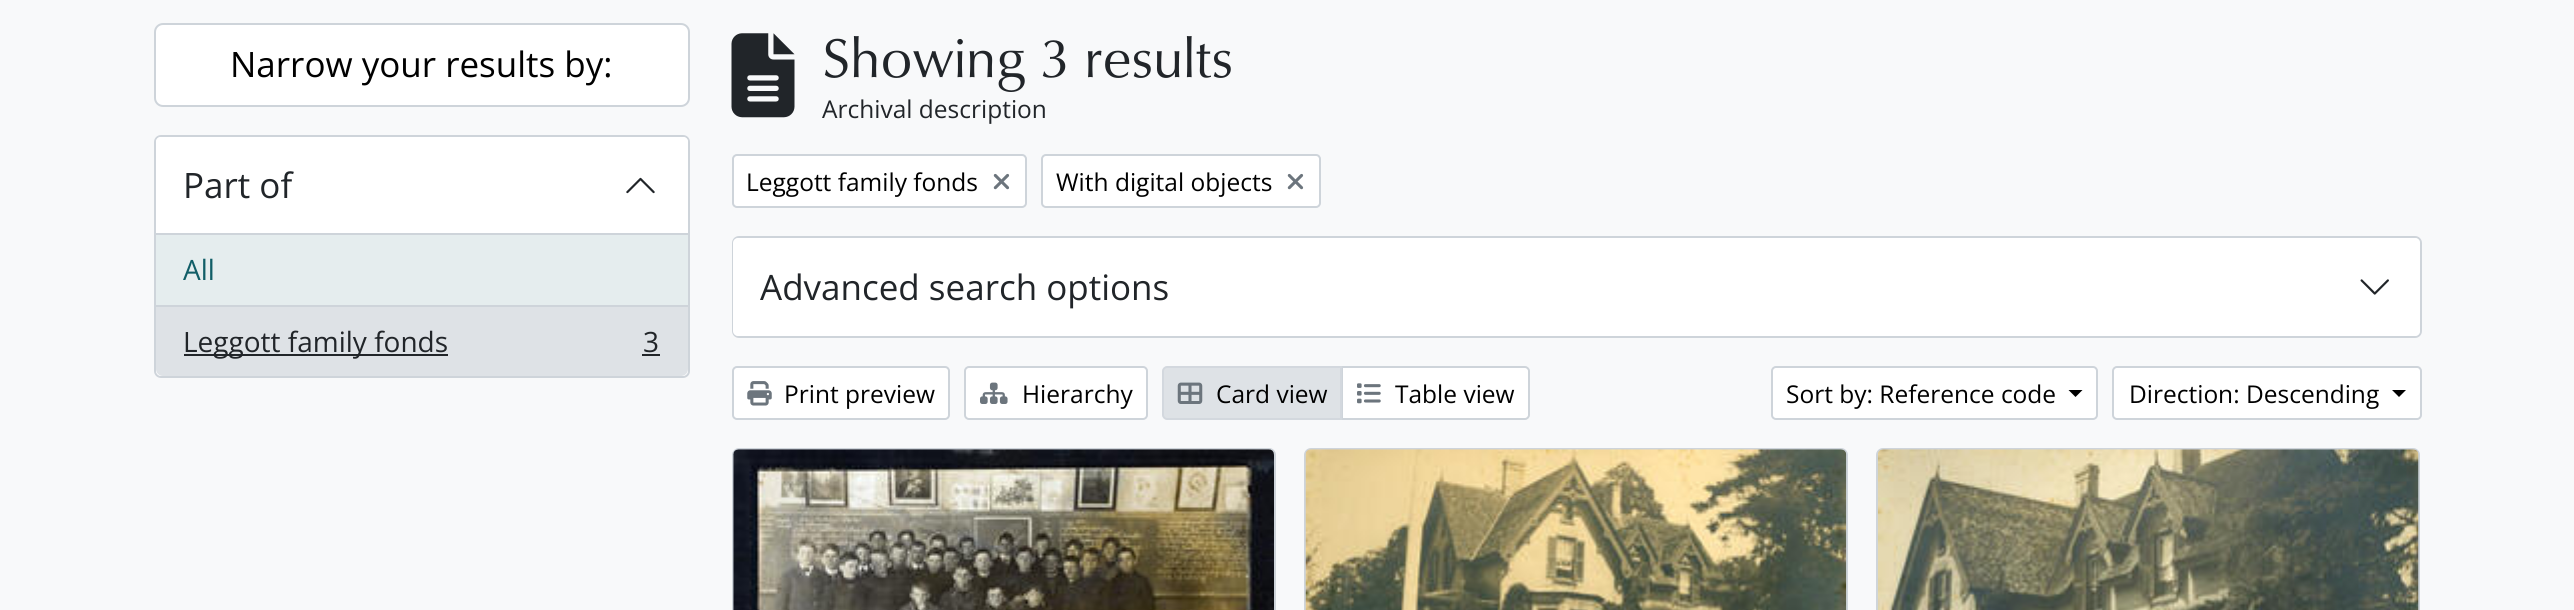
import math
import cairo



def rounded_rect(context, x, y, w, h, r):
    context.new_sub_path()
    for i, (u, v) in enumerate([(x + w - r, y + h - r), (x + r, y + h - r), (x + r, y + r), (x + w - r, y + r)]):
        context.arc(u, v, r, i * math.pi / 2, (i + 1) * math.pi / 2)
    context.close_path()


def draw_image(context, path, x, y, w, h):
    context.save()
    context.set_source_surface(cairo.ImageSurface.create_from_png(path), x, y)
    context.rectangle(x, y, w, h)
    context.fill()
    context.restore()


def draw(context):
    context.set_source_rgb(248 / 255, 249 / 255, 250 / 255)
    context.paint()
    context.set_source_rgb(1, 1, 1)
    rounded_rect(context, 155, 24, 534, 82, 8)
    context.fill_preserve()
    context.set_source_rgb(206 / 255, 212 / 255, 218 / 255)
    context.stroke()
    context.set_source_rgb(1, 1, 1)
    rounded_rect(context, 155, 136, 534, 241, 6)
    context.fill_preserve()
    context.set_source_rgb(206 / 255, 212 / 255, 218 / 255)
    context.stroke()
    context.set_source_rgb(1, 1, 1)
    context.new_path()
    context.move_to(161, 137)
    context.line_to(683, 137)
    context.curve_to(686, 137, 688, 139, 688, 142)
    context.line_to(688, 235)
    context.line_to(156, 235)
    context.line_to(156, 142)
    context.curve_to(156, 139, 158, 137, 161, 137)
    context.close_path()
    context.fill()
    context.set_source_rgb(206 / 255, 212 / 255, 218 / 255)
    context.rectangle(156, 233, 532, 2)
    context.fill()
    draw_image(context, "images/1.png", 626, 177, 29, 17)
    context.set_source_rgb(229 / 255, 237 / 255, 238 / 255)
    context.rectangle(156, 235, 532, 70)
    context.fill()
    context.set_source_rgb(222 / 255, 226 / 255, 230 / 255)
    context.new_path()
    context.move_to(156, 306)
    context.line_to(688, 306)
    context.line_to(688, 369)
    context.curve_to(688, 373, 685, 376, 681, 376)
    context.line_to(163, 376)
    context.curve_to(159, 376, 156, 373, 156, 369)
    context.close_path()
    context.fill()
    context.set_source_rgb(206 / 255, 212 / 255, 218 / 255)
    context.rectangle(156, 305, 532, 2)
    context.fill()
    context.set_source_rgb(33 / 255, 37 / 255, 41 / 255)
    context.rectangle(184, 354, 264, 2)
    context.fill()
    context.rectangle(642, 354, 18, 2)
    context.fill()
    draw_image(context, "images/2.png", 731, 33, 64, 85)
    context.set_source_rgb(1, 1, 1)
    rounded_rect(context, 733, 155, 293, 52, 4)
    context.fill_preserve()
    context.set_source_rgb(206 / 255, 212 / 255, 218 / 255)
    context.stroke()
    draw_image(context, "images/3.png", 993, 173, 17, 17)
    context.set_source_rgb(1, 1, 1)
    rounded_rect(context, 1042, 155, 278, 52, 4)
    context.fill_preserve()
    context.set_source_rgb(206 / 255, 212 / 255, 218 / 255)
    context.stroke()
    draw_image(context, "images/3.png", 1287, 173, 17, 17)
    rounded_rect(context, 733, 237, 1688, 100, 6)
    context.stroke()
    context.set_source_rgb(1, 1, 1)
    rounded_rect(context, 733, 238, 1687, 98, 5)
    context.fill()
    draw_image(context, "images/4.png", 2360, 279, 29, 16)
    rounded_rect(context, 733, 367, 216, 52, 4)
    context.fill_preserve()
    context.set_source_rgb(206 / 255, 212 / 255, 218 / 255)
    context.stroke()
    draw_image(context, "images/5.png", 747, 381, 25, 25)
    context.set_source_rgb(1, 1, 1)
    rounded_rect(context, 965, 367, 182, 52, 4)
    context.fill_preserve()
    context.set_source_rgb(206 / 255, 212 / 255, 218 / 255)
    context.stroke()
    draw_image(context, "images/6.png", 980, 382, 28, 22)
    context.set_source_rgb(1, 1, 1)
    context.new_path()
    context.move_to(1342, 367)
    context.line_to(1525, 367)
    context.curve_to(1527, 367, 1529, 369, 1529, 371)
    context.line_to(1529, 415)
    context.curve_to(1529, 417, 1527, 419, 1525, 419)
    context.line_to(1342, 419)
    context.close_path()
    context.fill_preserve()
    context.set_source_rgb(206 / 255, 212 / 255, 218 / 255)
    context.stroke()
    context.set_source_rgb(222 / 255, 226 / 255, 230 / 255)
    context.new_path()
    context.move_to(1167, 367)
    context.line_to(1341, 367)
    context.line_to(1341, 419)
    context.line_to(1167, 419)
    context.curve_to(1165, 419, 1163, 417, 1163, 415)
    context.line_to(1163, 371)
    context.curve_to(1163, 369, 1165, 367, 1167, 367)
    context.close_path()
    context.fill_preserve()
    context.set_source_rgb(211 / 255, 216 / 255, 222 / 255)
    context.stroke()
    draw_image(context, "images/7.png", 1177, 382, 26, 22)
    draw_image(context, "images/8.png", 1357, 383, 24, 21)
    context.set_source_rgb(1, 1, 1)
    rounded_rect(context, 1772, 367, 325, 52, 4)
    context.fill_preserve()
    context.set_source_rgb(206 / 255, 212 / 255, 218 / 255)
    context.stroke()
    context.set_source_rgb(0, 0, 0)
    context.new_path()
    context.move_to(2068.5, 390)
    context.line_to(2082.5, 390)
    context.line_to(2075.5, 397)
    context.close_path()
    context.fill()
    context.set_source_rgb(1, 1, 1)
    rounded_rect(context, 2113, 367, 308, 52, 4)
    context.fill_preserve()
    context.set_source_rgb(206 / 255, 212 / 255, 218 / 255)
    context.stroke()
    context.set_source_rgb(0, 0, 0)
    context.new_path()
    context.move_to(2392, 390)
    context.line_to(2406, 390)
    context.line_to(2399, 397)
    context.close_path()
    context.fill()
    rounded_rect(context, 733, 449, 542, 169, 6)
    context.set_source_rgb(206 / 255, 212 / 255, 218 / 255)
    context.stroke()
    draw_image(context, "images/9.png", 733, 449, 541, 161)
    rounded_rect(context, 1305, 449, 542, 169, 6)
    context.stroke()
    draw_image(context, "images/10.png", 1305, 449, 542, 161)
    rounded_rect(context, 1877, 449, 542, 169, 6)
    context.stroke()
    draw_image(context, "images/11.png", 1877, 449, 542, 161)
    context.select_font_face("Open Sans")
    context.set_font_size(35)
    context.set_source_rgb(0, 0, 0)
    context.move_to(230, 77)
    context.show_text("Narrow your results by:")
    context.set_source_rgb(33 / 255, 37 / 255, 41 / 255)
    context.move_to(183, 198)
    context.show_text("Part of")
    context.set_font_size(28)
    context.set_source_rgb(17 / 255, 94 / 255, 103 / 255)
    context.move_to(183, 280)
    context.show_text("All")
    context.set_source_rgb(33 / 255, 37 / 255, 41 / 255)
    context.move_to(183, 352)
    context.show_text("Leggott family fonds")
    context.move_to(643, 352)
    context.show_text("3")
    context.select_font_face("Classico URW")
    context.set_font_size(56)
    context.move_to(822, 77)
    context.show_text("Showing 3 results")
    context.select_font_face("Open Sans")
    context.set_font_size(24.5)
    context.move_to(822, 118)
    context.show_text("Archival description")
    context.set_source_rgb(0, 0, 0)
    context.move_to(746, 191)
    context.show_text("Leggott family fonds")
    context.move_to(1056, 191)
    context.show_text("With digital objects")
    context.set_font_size(35)
    context.set_source_rgb(33 / 255, 37 / 255, 41 / 255)
    context.move_to(760, 300)
    context.show_text("Advanced search options")
    context.set_font_size(24.5)
    context.set_source_rgb(0, 0, 0)
    context.move_to(784, 403)
    context.show_text("Print preview")
    context.move_to(1022, 403)
    context.show_text("Hierarchy")
    context.move_to(1216, 403)
    context.show_text("Card view")
    context.move_to(1395, 403)
    context.show_text("Table view")
    context.move_to(1786, 403)
    context.show_text("Sort by: Reference code")
    context.move_to(2129, 403)
    context.show_text("Direction: Descending")


surface = cairo.ImageSurface(cairo.Format.RGB24, 2574, 610)
context = cairo.Context(surface)
options = cairo.FontOptions()
options.set_hint_metrics(cairo.HintMetrics.OFF)
options.set_hint_style(cairo.HintStyle.NONE)
context.set_font_options(options)
context.set_miter_limit(4)
draw(context)
surface.write_to_png("out.png")
